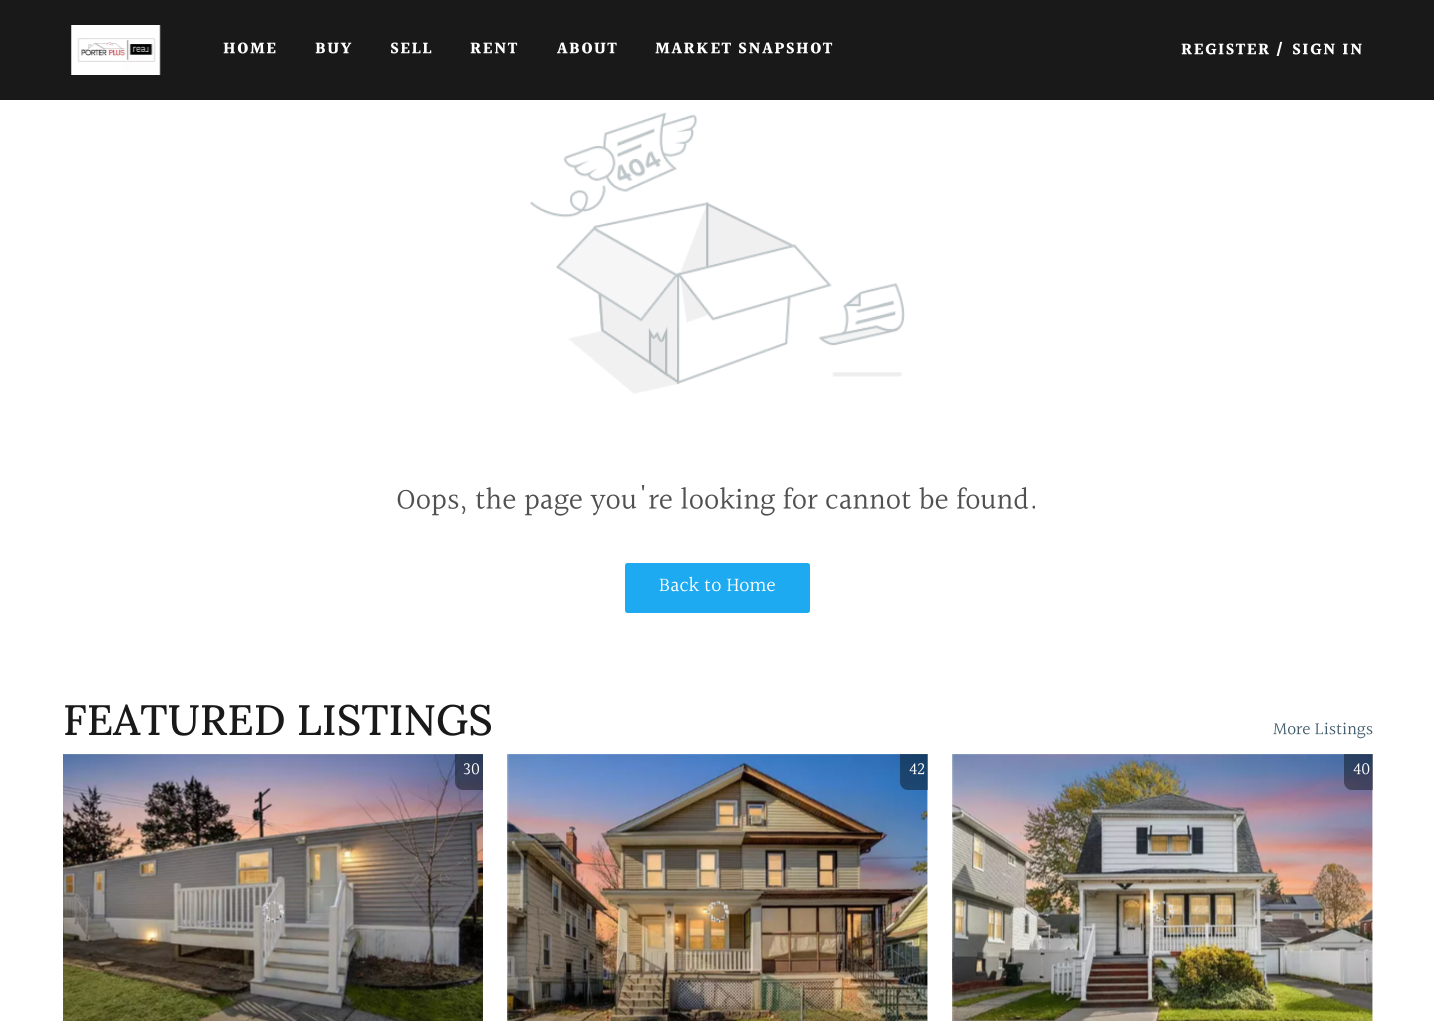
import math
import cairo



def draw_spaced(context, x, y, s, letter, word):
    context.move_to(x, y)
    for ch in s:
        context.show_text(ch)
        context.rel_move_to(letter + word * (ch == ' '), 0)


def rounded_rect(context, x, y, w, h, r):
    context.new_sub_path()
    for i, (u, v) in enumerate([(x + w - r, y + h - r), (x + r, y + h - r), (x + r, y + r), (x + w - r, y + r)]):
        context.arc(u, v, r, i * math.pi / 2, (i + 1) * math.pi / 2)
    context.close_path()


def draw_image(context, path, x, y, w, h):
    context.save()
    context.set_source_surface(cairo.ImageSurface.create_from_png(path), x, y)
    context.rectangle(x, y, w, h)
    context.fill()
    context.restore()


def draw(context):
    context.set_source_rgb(1, 1, 1)
    context.paint()
    context.set_source_rgb(25 / 255, 25 / 255, 25 / 255)
    context.rectangle(0, 0, 1434, 100)
    context.fill()
    draw_image(context, "images/1.png", 71, 25, 90, 50)
    draw_image(context, "images/2.png", 530, 112, 375, 282)
    context.set_source_rgb(29 / 255, 170 / 255, 240 / 255)
    rounded_rect(context, 625, 563, 185, 50, 2.5)
    context.fill()
    draw_image(context, "images/3.png", 63, 754, 420, 267)
    draw_image(context, "images/4.png", 262, 900, 23, 23)
    context.set_source_rgba(0, 0, 0, 0.4)
    context.new_path()
    context.move_to(455, 754)
    context.line_to(483, 754)
    context.line_to(483, 790)
    context.line_to(463, 790)
    context.curve_to(458.5, 790, 455, 786.5, 455, 782)
    context.close_path()
    context.fill()
    draw_image(context, "images/5.png", 507, 754, 421, 267)
    draw_image(context, "images/6.png", 706, 900, 24, 24)
    context.new_path()
    context.move_to(900, 754)
    context.line_to(928, 754)
    context.line_to(928, 790)
    context.line_to(908, 790)
    context.curve_to(903.5, 790, 900, 786.5, 900, 782)
    context.close_path()
    context.fill()
    draw_image(context, "images/7.png", 952, 754, 421, 267)
    draw_image(context, "images/8.png", 1151, 900, 24, 24)
    context.new_path()
    context.move_to(1344, 754)
    context.line_to(1373, 754)
    context.line_to(1373, 790)
    context.line_to(1352, 790)
    context.curve_to(1347.5, 790, 1344, 786.5, 1344, 782)
    context.close_path()
    context.fill()
    context.select_font_face("Halant", cairo.FontSlant.NORMAL, cairo.FontWeight.BOLD)
    context.set_font_size(16.25)
    context.set_source_rgb(1, 1, 1)
    draw_spaced(context, 223, 54, "HOME", 1.4, 0)
    draw_spaced(context, 315, 54, "BUY", 1.4, 0)
    draw_spaced(context, 390, 54, "SELL", 1.4, 0)
    draw_spaced(context, 470, 54, "RENT", 1.4, 0)
    draw_spaced(context, 557, 54, "ABOUT", 1.4, 0)
    draw_spaced(context, 655, 54, "MARKET SNAPSHOT", 1.4, 0)
    draw_spaced(context, 1181, 55, "REGISTER", 1.4, 0)
    draw_spaced(context, 1276, 55, "/", 1.4, 0)
    draw_spaced(context, 1292, 55, "SIGN IN", 1.4, 0)
    context.select_font_face("Halant")
    context.set_font_size(30)
    context.set_source_rgb(80 / 255, 80 / 255, 80 / 255)
    context.move_to(396, 510)
    context.show_text("Oops, the page you're looking for cannot be found.")
    context.set_font_size(20)
    context.set_source_rgb(1, 1, 1)
    context.move_to(659, 592)
    context.show_text("Back to Home")
    context.select_font_face("Lora Medium")
    context.set_font_size(42.5)
    context.set_source_rgb(25 / 255, 25 / 255, 25 / 255)
    context.move_to(63, 735)
    context.show_text("FEATURED LISTINGS")
    context.select_font_face("Halant")
    context.set_font_size(17.5)
    context.set_source_rgb(67 / 255, 93 / 255, 109 / 255)
    context.move_to(1273, 735)
    context.show_text("More Listings")
    context.set_source_rgb(1, 1, 1)
    context.move_to(463, 775)
    context.show_text("30")
    context.move_to(909, 775)
    context.show_text("42")
    context.move_to(1353, 775)
    context.show_text("40")


surface = cairo.ImageSurface(cairo.Format.RGB24, 1434, 1021)
context = cairo.Context(surface)
options = cairo.FontOptions()
options.set_hint_metrics(cairo.HintMetrics.OFF)
options.set_hint_style(cairo.HintStyle.NONE)
context.set_font_options(options)
context.set_miter_limit(4)
draw(context)
surface.write_to_png("out.png")
